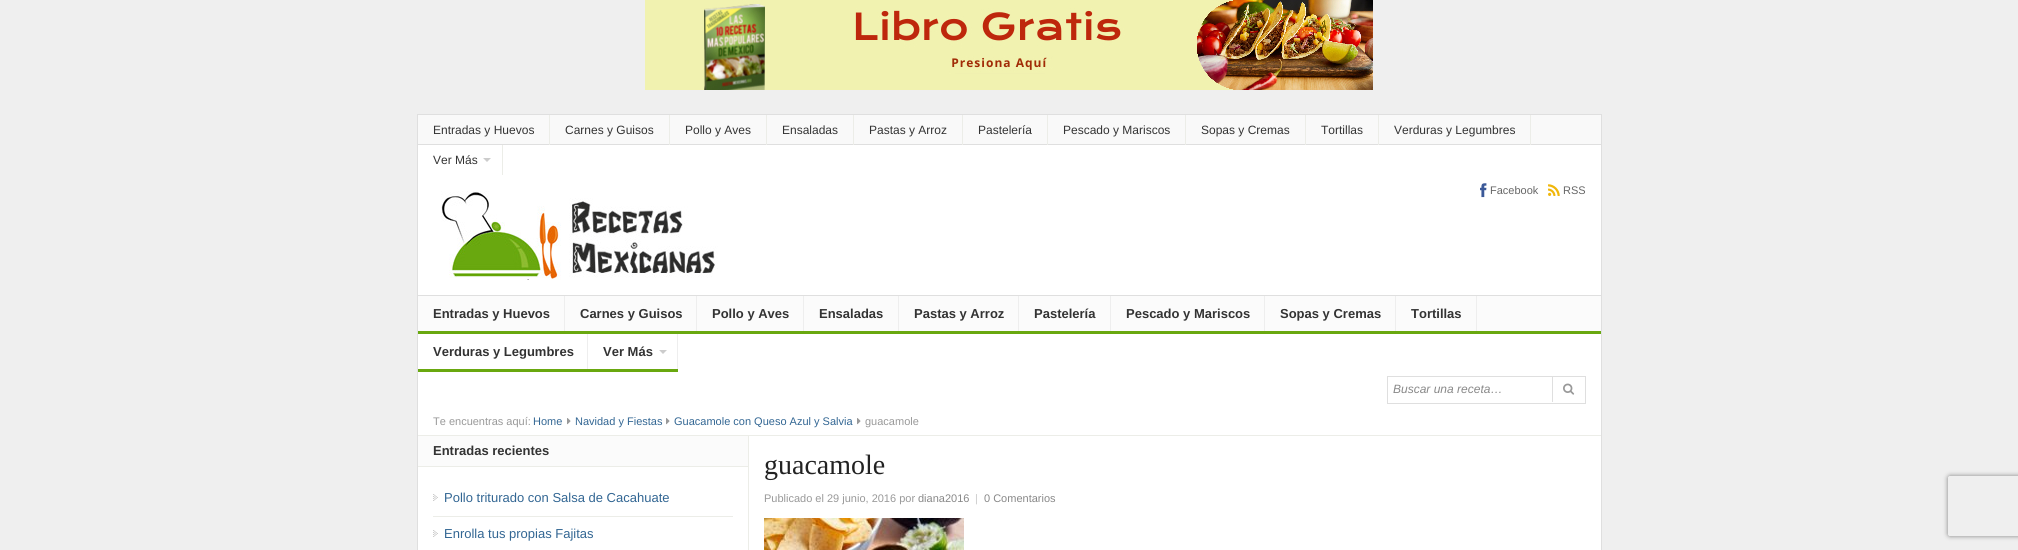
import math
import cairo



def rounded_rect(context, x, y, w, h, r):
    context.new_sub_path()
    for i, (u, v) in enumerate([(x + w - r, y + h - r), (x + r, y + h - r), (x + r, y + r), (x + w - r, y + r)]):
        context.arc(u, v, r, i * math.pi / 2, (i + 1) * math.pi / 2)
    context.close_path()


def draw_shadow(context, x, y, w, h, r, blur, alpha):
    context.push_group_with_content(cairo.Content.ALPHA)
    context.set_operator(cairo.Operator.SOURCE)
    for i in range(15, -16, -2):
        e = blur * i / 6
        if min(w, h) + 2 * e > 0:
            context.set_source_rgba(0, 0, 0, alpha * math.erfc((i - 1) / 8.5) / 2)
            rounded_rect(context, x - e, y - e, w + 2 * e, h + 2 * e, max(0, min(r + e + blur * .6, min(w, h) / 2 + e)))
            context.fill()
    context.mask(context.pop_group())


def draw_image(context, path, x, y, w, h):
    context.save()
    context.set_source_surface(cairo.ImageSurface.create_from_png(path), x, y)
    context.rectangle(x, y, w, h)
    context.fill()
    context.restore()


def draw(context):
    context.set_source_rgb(239 / 255, 239 / 255, 239 / 255)
    context.paint()
    draw_image(context, "images/1.png", 645, 0, 728, 90)
    context.set_source_rgb(1, 1, 1)
    context.rectangle(418, 145, 1183, 405)
    context.fill()
    context.rectangle(417.5, 114.5, 1184, 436)
    context.set_source_rgb(223 / 255, 223 / 255, 223 / 255)
    context.set_line_width(1)
    context.stroke()
    context.set_source_rgb(249 / 255, 249 / 255, 249 / 255)
    context.rectangle(418, 115, 1183, 29)
    context.fill()
    context.set_source_rgb(223 / 255, 223 / 255, 223 / 255)
    context.rectangle(418, 144, 1183, 1)
    context.fill()
    context.set_source_rgb(236 / 255, 237 / 255, 232 / 255)
    context.rectangle(549, 115, 1, 30)
    context.fill()
    context.rectangle(669, 115, 1, 30)
    context.fill()
    context.rectangle(766, 115, 1, 30)
    context.fill()
    context.rectangle(853, 115, 1, 30)
    context.fill()
    context.rectangle(962, 115, 1, 30)
    context.fill()
    context.rectangle(1047, 115, 1, 30)
    context.fill()
    context.rectangle(1185, 115, 1, 30)
    context.fill()
    context.rectangle(1305, 115, 1, 30)
    context.fill()
    context.rectangle(1378, 115, 1, 30)
    context.fill()
    context.rectangle(1530, 115, 1, 30)
    context.fill()
    context.rectangle(502, 145, 1, 30)
    context.fill()
    context.set_source_rgb(204 / 255, 204 / 255, 204 / 255)
    context.new_path()
    context.move_to(483, 158)
    context.line_to(491, 158)
    context.line_to(487, 162)
    context.close_path()
    context.fill()
    draw_image(context, "images/2.png", 1480, 183, 7, 15)
    draw_image(context, "images/3.png", 1548, 184, 12, 12)
    draw_image(context, "images/4.png", 441, 191, 277, 89)
    context.set_source_rgb(251 / 255, 251 / 255, 251 / 255)
    context.rectangle(418, 296, 1183, 35)
    context.fill()
    context.set_source_rgb(223 / 255, 223 / 255, 223 / 255)
    context.rectangle(418, 295, 1183, 1)
    context.fill()
    context.set_source_rgb(105 / 255, 168 / 255, 15 / 255)
    context.rectangle(1477, 331, 124, 3)
    context.fill()
    context.set_source_rgb(238 / 255, 238 / 255, 238 / 255)
    context.rectangle(564, 296, 1, 38)
    context.fill()
    context.set_source_rgb(105 / 255, 168 / 255, 15 / 255)
    context.rectangle(418, 331, 147, 3)
    context.fill()
    context.set_source_rgb(238 / 255, 238 / 255, 238 / 255)
    context.rectangle(696, 296, 1, 38)
    context.fill()
    context.set_source_rgb(105 / 255, 168 / 255, 15 / 255)
    context.rectangle(565, 331, 132, 3)
    context.fill()
    context.set_source_rgb(238 / 255, 238 / 255, 238 / 255)
    context.rectangle(803, 296, 1, 38)
    context.fill()
    context.set_source_rgb(105 / 255, 168 / 255, 15 / 255)
    context.rectangle(697, 331, 107, 3)
    context.fill()
    context.set_source_rgb(238 / 255, 238 / 255, 238 / 255)
    context.rectangle(898, 296, 1, 38)
    context.fill()
    context.set_source_rgb(105 / 255, 168 / 255, 15 / 255)
    context.rectangle(804, 331, 95, 3)
    context.fill()
    context.set_source_rgb(238 / 255, 238 / 255, 238 / 255)
    context.rectangle(1018, 296, 1, 38)
    context.fill()
    context.set_source_rgb(105 / 255, 168 / 255, 15 / 255)
    context.rectangle(899, 331, 120, 3)
    context.fill()
    context.set_source_rgb(238 / 255, 238 / 255, 238 / 255)
    context.rectangle(1110, 296, 1, 38)
    context.fill()
    context.set_source_rgb(105 / 255, 168 / 255, 15 / 255)
    context.rectangle(1019, 331, 92, 3)
    context.fill()
    context.set_source_rgb(238 / 255, 238 / 255, 238 / 255)
    context.rectangle(1264, 296, 1, 38)
    context.fill()
    context.set_source_rgb(105 / 255, 168 / 255, 15 / 255)
    context.rectangle(1111, 331, 154, 3)
    context.fill()
    context.set_source_rgb(238 / 255, 238 / 255, 238 / 255)
    context.rectangle(1395, 296, 1, 38)
    context.fill()
    context.set_source_rgb(105 / 255, 168 / 255, 15 / 255)
    context.rectangle(1265, 331, 131, 3)
    context.fill()
    context.set_source_rgb(238 / 255, 238 / 255, 238 / 255)
    context.rectangle(1476, 296, 1, 38)
    context.fill()
    context.set_source_rgb(105 / 255, 168 / 255, 15 / 255)
    context.rectangle(1396, 331, 81, 3)
    context.fill()
    context.set_source_rgb(238 / 255, 238 / 255, 238 / 255)
    context.rectangle(587, 334, 1, 38)
    context.fill()
    context.set_source_rgb(105 / 255, 168 / 255, 15 / 255)
    context.rectangle(418, 369, 170, 3)
    context.fill()
    context.set_source_rgb(238 / 255, 238 / 255, 238 / 255)
    context.rectangle(677, 334, 1, 38)
    context.fill()
    context.set_source_rgb(105 / 255, 168 / 255, 15 / 255)
    context.rectangle(588, 369, 90, 3)
    context.fill()
    context.set_source_rgb(204 / 255, 204 / 255, 204 / 255)
    context.new_path()
    context.move_to(659, 350)
    context.line_to(667, 350)
    context.line_to(663, 354)
    context.close_path()
    context.fill()
    context.rectangle(1387.5, 376.5, 198, 27)
    context.set_source_rgb(223 / 255, 223 / 255, 223 / 255)
    context.stroke()
    context.rectangle(1552, 377, 1, 25)
    context.fill()
    draw_image(context, "images/5.png", 1563, 383, 12, 12)
    draw_image(context, "images/6.png", 567, 418, 4, 7)
    draw_image(context, "images/6.png", 666, 418, 4, 7)
    draw_image(context, "images/6.png", 857, 418, 4, 7)
    context.set_source_rgb(236 / 255, 237 / 255, 232 / 255)
    context.rectangle(418, 435, 1183, 1)
    context.fill()
    context.set_source_rgb(251 / 255, 251 / 255, 251 / 255)
    context.rectangle(418, 436, 330, 30)
    context.fill()
    context.set_source_rgb(236 / 255, 237 / 255, 232 / 255)
    context.rectangle(418, 466, 330, 1)
    context.fill()
    draw_image(context, "images/7.png", 433, 494, 5, 7)
    context.rectangle(433, 516, 300, 1)
    context.fill()
    draw_image(context, "images/7.png", 433, 530, 5, 7)
    context.rectangle(748, 436, 1, 114)
    context.fill()
    draw_image(context, "images/8.png", 764, 518, 200, 32)
    context.save()
    context.set_fill_rule(cairo.FillRule.EVEN_ODD)
    context.new_path()
    context.move_to(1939, 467)
    context.line_to(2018, 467)
    context.line_to(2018, 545)
    context.line_to(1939, 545)
    context.close_path()
    context.move_to(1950, 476)
    context.line_to(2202, 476)
    context.curve_to(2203, 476, 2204, 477, 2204, 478)
    context.line_to(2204, 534)
    context.curve_to(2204, 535, 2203, 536, 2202, 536)
    context.line_to(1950, 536)
    context.curve_to(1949, 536, 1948, 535, 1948, 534)
    context.line_to(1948, 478)
    context.curve_to(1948, 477, 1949, 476, 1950, 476)
    context.close_path()
    context.clip()
    context.set_source_rgb(128 / 255, 128 / 255, 128 / 255)
    draw_shadow(context, 1948, 476, 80, 60, 2, 2.5, 1)
    context.restore()
    context.select_font_face("Liberation Sans")
    context.set_font_size(12)
    context.set_source_rgb(51 / 255, 51 / 255, 51 / 255)
    context.move_to(433, 134)
    context.show_text("Entradas y Huevos")
    context.move_to(565, 134)
    context.show_text("Carnes y Guisos")
    context.move_to(685, 134)
    context.show_text("Pollo y Aves")
    context.move_to(782, 134)
    context.show_text("Ensaladas")
    context.move_to(869, 134)
    context.show_text("Pastas y Arroz")
    context.move_to(978, 134)
    context.show_text("Pastelería")
    context.move_to(1063, 134)
    context.show_text("Pescado y Mariscos")
    context.move_to(1201, 134)
    context.show_text("Sopas y Cremas")
    context.move_to(1321, 134)
    context.show_text("Tortillas")
    context.move_to(1394, 134)
    context.show_text("Verduras y Legumbres")
    context.move_to(433, 164)
    context.show_text("Ver Más")
    context.set_font_size(11)
    context.set_source_rgb(102 / 255, 102 / 255, 102 / 255)
    context.move_to(1490, 194)
    context.show_text("Facebook")
    context.move_to(1563, 194)
    context.show_text("RSS")
    context.select_font_face("Liberation Sans", cairo.FontSlant.NORMAL, cairo.FontWeight.BOLD)
    context.set_font_size(13)
    context.set_source_rgb(51 / 255, 51 / 255, 51 / 255)
    context.move_to(433, 318)
    context.show_text("Entradas y Huevos")
    context.move_to(580, 318)
    context.show_text("Carnes y Guisos")
    context.move_to(712, 318)
    context.show_text("Pollo y Aves")
    context.move_to(819, 318)
    context.show_text("Ensaladas")
    context.move_to(914, 318)
    context.show_text("Pastas y Arroz")
    context.move_to(1034, 318)
    context.show_text("Pastelería")
    context.move_to(1126, 318)
    context.show_text("Pescado y Mariscos")
    context.move_to(1280, 318)
    context.show_text("Sopas y Cremas")
    context.move_to(1411, 318)
    context.show_text("Tortillas")
    context.move_to(433, 356)
    context.show_text("Verduras y Legumbres")
    context.move_to(603, 356)
    context.show_text("Ver Más")
    context.select_font_face("Liberation Sans", cairo.FontSlant.ITALIC)
    context.set_font_size(12)
    context.set_source_rgb(136 / 255, 136 / 255, 136 / 255)
    context.move_to(1393, 393)
    context.show_text("Buscar una receta…")
    context.select_font_face("Liberation Sans")
    context.set_font_size(11)
    context.set_source_rgb(153 / 255, 153 / 255, 153 / 255)
    context.move_to(433, 425)
    context.show_text("Te encuentras aquí:")
    context.set_source_rgb(50 / 255, 102 / 255, 147 / 255)
    context.move_to(533, 425)
    context.show_text("Home")
    context.move_to(575, 425)
    context.show_text("Navidad y Fiestas")
    context.move_to(674, 425)
    context.show_text("Guacamole con Queso Azul y Salvia")
    context.set_source_rgb(153 / 255, 153 / 255, 153 / 255)
    context.move_to(865, 425)
    context.show_text("guacamole")
    context.select_font_face("Liberation Sans", cairo.FontSlant.NORMAL, cairo.FontWeight.BOLD)
    context.set_font_size(13)
    context.set_source_rgb(51 / 255, 51 / 255, 51 / 255)
    context.move_to(433, 455)
    context.show_text("Entradas recientes")
    context.select_font_face("Liberation Sans")
    context.set_source_rgb(50 / 255, 102 / 255, 147 / 255)
    context.move_to(444, 502)
    context.show_text("Pollo triturado con Salsa de Cacahuate")
    context.move_to(444, 538)
    context.show_text("Enrolla tus propias Fajitas")
    context.select_font_face("Liberation Serif")
    context.set_font_size(28)
    context.set_source_rgb(34 / 255, 34 / 255, 34 / 255)
    context.move_to(764, 474)
    context.show_text("guacamole")
    context.select_font_face("Liberation Sans")
    context.set_font_size(11)
    context.set_source_rgb(153 / 255, 153 / 255, 153 / 255)
    context.move_to(764, 502)
    context.show_text("Publicado el 29 junio, 2016 por")
    context.set_source_rgb(136 / 255, 136 / 255, 136 / 255)
    context.move_to(918, 502)
    context.show_text("diana2016")
    context.set_source_rgb(204 / 255, 204 / 255, 204 / 255)
    context.move_to(975, 502)
    context.show_text("|")
    context.set_source_rgb(136 / 255, 136 / 255, 136 / 255)
    context.move_to(984, 502)
    context.show_text("0 Comentarios")


surface = cairo.ImageSurface(cairo.Format.RGB24, 2018, 550)
context = cairo.Context(surface)
options = cairo.FontOptions()
options.set_hint_metrics(cairo.HintMetrics.OFF)
options.set_hint_style(cairo.HintStyle.NONE)
context.set_font_options(options)
context.set_miter_limit(4)
draw(context)
surface.write_to_png("out.png")
